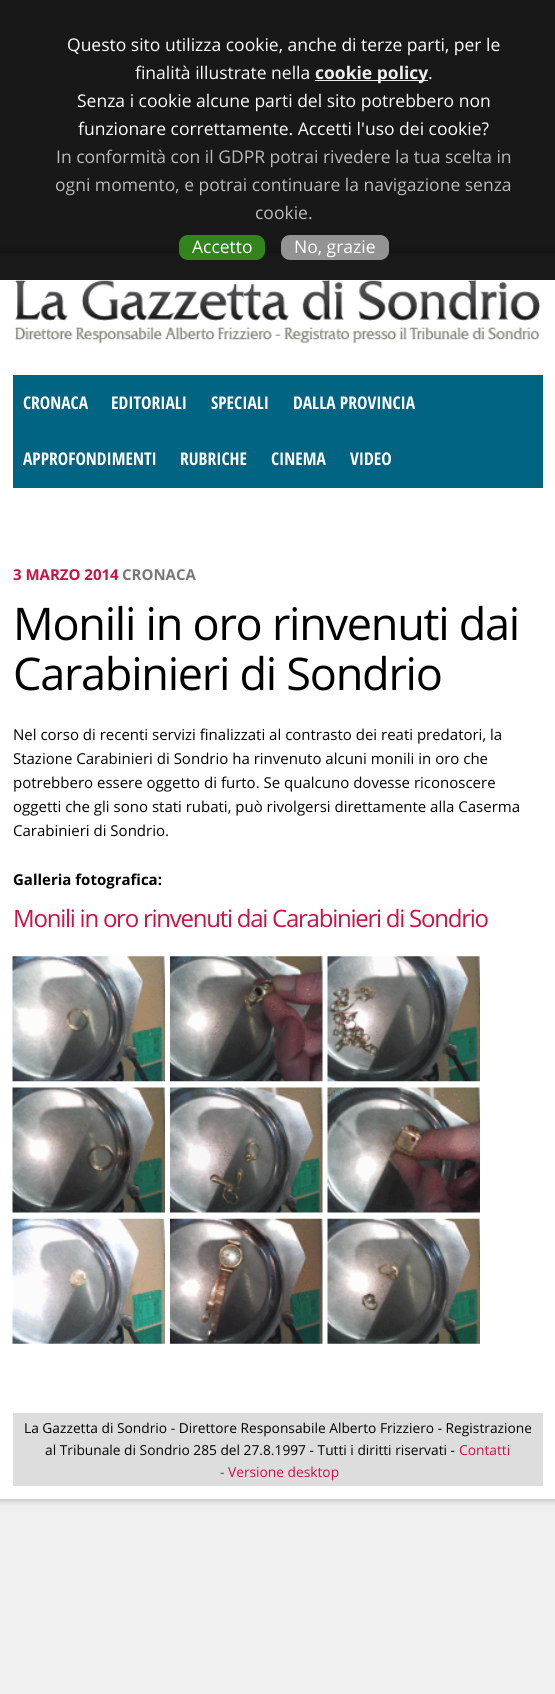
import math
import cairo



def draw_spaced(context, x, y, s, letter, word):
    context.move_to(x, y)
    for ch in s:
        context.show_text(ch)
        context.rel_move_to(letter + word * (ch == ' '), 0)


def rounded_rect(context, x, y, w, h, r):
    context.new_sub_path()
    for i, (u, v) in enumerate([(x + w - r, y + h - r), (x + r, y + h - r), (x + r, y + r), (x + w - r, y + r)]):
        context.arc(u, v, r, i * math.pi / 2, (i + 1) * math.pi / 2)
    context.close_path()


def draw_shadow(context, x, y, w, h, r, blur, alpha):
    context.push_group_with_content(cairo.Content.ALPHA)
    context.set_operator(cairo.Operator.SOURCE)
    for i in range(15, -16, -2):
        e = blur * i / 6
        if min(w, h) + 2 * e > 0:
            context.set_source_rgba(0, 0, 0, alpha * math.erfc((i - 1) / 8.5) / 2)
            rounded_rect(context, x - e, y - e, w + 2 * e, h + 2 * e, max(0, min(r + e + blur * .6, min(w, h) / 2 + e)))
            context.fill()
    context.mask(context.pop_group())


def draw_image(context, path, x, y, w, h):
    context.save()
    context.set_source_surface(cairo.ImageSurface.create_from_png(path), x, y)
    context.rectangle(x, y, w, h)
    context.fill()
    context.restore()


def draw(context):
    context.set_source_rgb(240 / 255, 240 / 255, 240 / 255)
    context.paint()
    context.set_source_rgb(0, 0, 0)
    draw_shadow(context, -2, 250, 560, 1251, 0, 3, 0.2)
    context.set_source_rgb(1, 1, 1)
    context.rectangle(0, 253, 555, 1246)
    context.fill()
    draw_image(context, "images/1.png", 14, 279, 527, 64)
    context.set_source_rgba(0, 0, 0, 0.9)
    context.rectangle(0, 0, 555, 280)
    context.fill()
    context.set_source_rgb(238 / 255, 238 / 255, 238 / 255)
    context.rectangle(315, 80, 113, 1)
    context.fill()
    context.set_source_rgba(57 / 255, 160 / 255, 28 / 255, 0.8)
    rounded_rect(context, 179, 235, 86, 25, 9)
    context.fill()
    context.set_source_rgba(200 / 255, 200 / 255, 200 / 255, 0.7)
    rounded_rect(context, 281, 235, 108, 25, 9)
    context.fill()
    context.set_source_rgb(1 / 255, 100 / 255, 131 / 255)
    context.rectangle(13, 375, 530, 113)
    context.fill()
    draw_image(context, "images/2.png", 12, 956, 153, 126)
    draw_image(context, "images/3.png", 170, 956, 153, 126)
    draw_image(context, "images/4.png", 327, 956, 153, 126)
    draw_image(context, "images/5.png", 12, 1087, 153, 126)
    draw_image(context, "images/6.png", 170, 1087, 153, 126)
    draw_image(context, "images/7.png", 327, 1087, 153, 126)
    draw_image(context, "images/8.png", 12, 1218, 153, 126)
    draw_image(context, "images/9.png", 170, 1218, 153, 126)
    draw_image(context, "images/10.png", 327, 1218, 153, 126)
    context.set_source_rgb(221 / 255, 221 / 255, 221 / 255)
    context.rectangle(13, 1413, 530, 73)
    context.fill()
    context.select_font_face("Open Sans")
    context.set_font_size(17.5)
    context.set_source_rgb(1, 1, 1)
    context.move_to(67, 51)
    context.show_text("Questo sito utilizza cookie, anche di terze parti, per le")
    context.move_to(135, 79)
    context.show_text("finalità illustrate nella")
    context.select_font_face("Open Sans", cairo.FontSlant.NORMAL, cairo.FontWeight.BOLD)
    context.set_source_rgb(238 / 255, 238 / 255, 238 / 255)
    context.move_to(315, 79)
    context.show_text("cookie policy")
    context.select_font_face("Open Sans")
    context.set_source_rgb(1, 1, 1)
    context.move_to(428, 79)
    context.show_text(".")
    context.move_to(77, 107)
    context.show_text("Senza i cookie alcune parti del sito potrebbero non")
    context.move_to(78, 135)
    context.show_text("funzionare correttamente. Accetti l'uso dei cookie?")
    context.set_source_rgb(186 / 255, 186 / 255, 186 / 255)
    context.move_to(56, 163)
    context.show_text("In conformità con il GDPR potrai rivedere la tua scelta in")
    context.move_to(55, 191)
    context.show_text("ogni momento, e potrai continuare la navigazione senza")
    context.move_to(255, 219)
    context.show_text("cookie.")
    context.set_source_rgb(1, 1, 1)
    context.move_to(192, 253)
    context.show_text("Accetto")
    context.move_to(294, 253)
    context.show_text("No, grazie")
    context.select_font_face("Open Sans Condensed", cairo.FontSlant.NORMAL, cairo.FontWeight.BOLD)
    context.move_to(23, 409)
    context.show_text("CRONACA")
    context.move_to(111, 409)
    context.show_text("EDITORIALI")
    context.move_to(211, 409)
    context.show_text("SPECIALI")
    context.move_to(293, 409)
    context.show_text("DALLA PROVINCIA")
    context.move_to(23, 465)
    context.show_text("APPROFONDIMENTI")
    context.move_to(180, 465)
    context.show_text("RUBRICHE")
    context.move_to(271, 465)
    context.show_text("CINEMA")
    context.move_to(350, 465)
    context.show_text("VIDEO")
    context.select_font_face("Open Sans", cairo.FontSlant.NORMAL, cairo.FontWeight.BOLD)
    context.set_font_size(15)
    context.set_source_rgb(204 / 255, 17 / 255, 68 / 255)
    context.move_to(13, 580)
    context.show_text("3 MARZO 2014")
    context.set_source_rgb(119 / 255, 119 / 255, 119 / 255)
    context.move_to(122, 580)
    context.show_text("CRONACA")
    context.select_font_face("Open Sans")
    context.set_font_size(45)
    context.set_source_rgb(0, 0, 0)
    draw_spaced(context, 13, 640, "Monili in oro rinvenuti dai", -1.25, 0)
    draw_spaced(context, 13, 690, "Carabinieri di Sondrio", -1.25, 0)
    context.set_font_size(15)
    context.move_to(13, 740)
    context.show_text("Nel corso di recenti servizi finalizzati al contrasto dei reati predatori, la")
    context.move_to(13, 764)
    context.show_text("Stazione Carabinieri di Sondrio ha rinvenuto alcuni monili in oro che")
    context.move_to(13, 788)
    context.show_text("potrebbero essere oggetto di furto. Se qualcuno dovesse riconoscere")
    context.move_to(13, 812)
    context.show_text("oggetti che gli sono stati rubati, può rivolgersi direttamente alla Caserma")
    context.move_to(13, 836)
    context.show_text("Carabinieri di Sondrio.")
    context.select_font_face("Open Sans", cairo.FontSlant.NORMAL, cairo.FontWeight.BOLD)
    context.move_to(13, 885)
    context.show_text("Galleria fotografica:")
    context.select_font_face("Open Sans")
    context.set_font_size(24)
    context.set_source_rgb(204 / 255, 17 / 255, 68 / 255)
    draw_spaced(context, 13, 927, "Monili in oro rinvenuti dai Carabinieri di Sondrio", -1.25, 0)
    context.set_font_size(13.75)
    context.set_source_rgb(0, 0, 0)
    context.move_to(24, 1433)
    context.show_text("La Gazzetta di Sondrio - Direttore Responsabile Alberto Frizziero - Registrazione")
    context.move_to(45, 1455)
    context.show_text("al Tribunale di Sondrio 285 del 27.8.1997 - Tutti i diritti riservati -")
    context.set_source_rgb(204 / 255, 17 / 255, 68 / 255)
    context.move_to(459, 1455)
    context.show_text("Contatti")
    context.move_to(220, 1477)
    context.show_text("- Versione desktop")


surface = cairo.ImageSurface(cairo.Format.RGB24, 555, 1694)
context = cairo.Context(surface)
options = cairo.FontOptions()
options.set_hint_metrics(cairo.HintMetrics.OFF)
options.set_hint_style(cairo.HintStyle.NONE)
context.set_font_options(options)
context.set_miter_limit(4)
draw(context)
surface.write_to_png("out.png")
